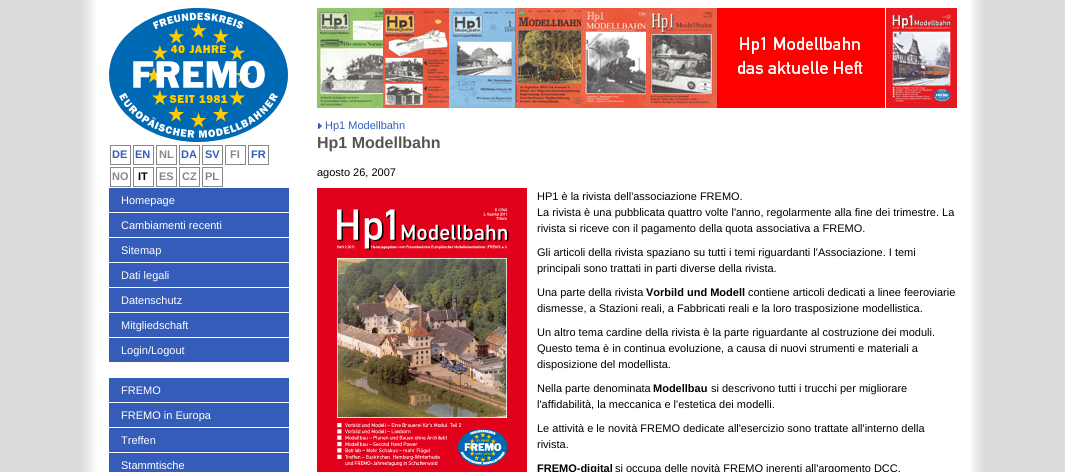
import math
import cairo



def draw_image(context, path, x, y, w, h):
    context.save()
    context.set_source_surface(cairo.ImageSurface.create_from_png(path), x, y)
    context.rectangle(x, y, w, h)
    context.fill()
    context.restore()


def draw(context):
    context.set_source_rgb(220 / 255, 220 / 255, 220 / 255)
    context.paint()
    draw_image(context, "images/1.png", 83, 0, 900, 472)
    draw_image(context, "images/2.png", 109, 8, 179, 134)
    context.rectangle(110.5, 145.5, 20, 19)
    context.set_source_rgb(136 / 255, 136 / 255, 136 / 255)
    context.set_line_width(1)
    context.stroke()
    context.rectangle(133.5, 145.5, 20, 19)
    context.stroke()
    context.rectangle(156.5, 145.5, 20, 19)
    context.stroke()
    context.rectangle(179.5, 145.5, 20, 19)
    context.stroke()
    context.rectangle(202.5, 145.5, 20, 19)
    context.stroke()
    context.rectangle(225.5, 145.5, 20, 19)
    context.stroke()
    context.rectangle(248.5, 145.5, 20, 19)
    context.stroke()
    context.rectangle(110.5, 167.5, 20, 19)
    context.stroke()
    context.rectangle(133.5, 167.5, 20, 19)
    context.stroke()
    context.rectangle(156.5, 167.5, 20, 19)
    context.stroke()
    context.rectangle(179.5, 167.5, 20, 19)
    context.stroke()
    context.rectangle(202.5, 167.5, 20, 19)
    context.stroke()
    context.set_source_rgb(53 / 255, 92 / 255, 185 / 255)
    context.rectangle(109, 188, 180, 24)
    context.fill()
    context.rectangle(109, 213, 180, 24)
    context.fill()
    context.rectangle(109, 238, 180, 24)
    context.fill()
    context.rectangle(109, 263, 180, 24)
    context.fill()
    context.rectangle(109, 288, 180, 24)
    context.fill()
    context.rectangle(109, 313, 180, 24)
    context.fill()
    context.rectangle(109, 338, 180, 24)
    context.fill()
    context.rectangle(109, 378, 180, 24)
    context.fill()
    context.rectangle(109, 403, 180, 24)
    context.fill()
    context.rectangle(109, 428, 180, 24)
    context.fill()
    context.rectangle(109, 453, 180, 19)
    context.fill()
    draw_image(context, "images/3.png", 317, 8, 400, 100)
    draw_image(context, "images/4.png", 717, 8, 240, 100)
    draw_image(context, "images/5.png", 318, 123, 4, 6)
    draw_image(context, "images/6.png", 317, 188, 210, 284)
    context.select_font_face("Liberation Sans", cairo.FontSlant.NORMAL, cairo.FontWeight.BOLD)
    context.set_font_size(11)
    context.move_to(112, 158)
    context.show_text("DE")
    context.move_to(135, 158)
    context.show_text("EN")
    context.set_source_rgb(136 / 255, 136 / 255, 136 / 255)
    context.move_to(159, 158)
    context.show_text("NL")
    context.set_source_rgb(53 / 255, 92 / 255, 185 / 255)
    context.move_to(181, 158)
    context.show_text("DA")
    context.move_to(205, 158)
    context.show_text("SV")
    context.set_source_rgb(136 / 255, 136 / 255, 136 / 255)
    context.move_to(230, 158)
    context.show_text("FI")
    context.set_source_rgb(53 / 255, 92 / 255, 185 / 255)
    context.move_to(251, 158)
    context.show_text("FR")
    context.set_source_rgb(136 / 255, 136 / 255, 136 / 255)
    context.move_to(112, 180)
    context.show_text("NO")
    context.set_source_rgb(0, 0, 0)
    context.move_to(138, 180)
    context.show_text("IT")
    context.set_source_rgb(136 / 255, 136 / 255, 136 / 255)
    context.move_to(159, 180)
    context.show_text("ES")
    context.move_to(182, 180)
    context.show_text("CZ")
    context.move_to(205, 180)
    context.show_text("PL")
    context.select_font_face("Liberation Sans")
    context.set_source_rgb(1, 1, 1)
    context.move_to(121, 204)
    context.show_text("Homepage")
    context.move_to(121, 229)
    context.show_text("Cambiamenti recenti")
    context.move_to(121, 254)
    context.show_text("Sitemap")
    context.move_to(121, 279)
    context.show_text("Dati legali")
    context.move_to(121, 304)
    context.show_text("Datenschutz")
    context.move_to(121, 329)
    context.show_text("Mitgliedschaft")
    context.move_to(121, 354)
    context.show_text("Login/Logout")
    context.move_to(121, 394)
    context.show_text("FREMO")
    context.move_to(121, 419)
    context.show_text("FREMO in Europa")
    context.move_to(121, 444)
    context.show_text("Treffen")
    context.move_to(121, 469)
    context.show_text("Stammtische")
    context.set_source_rgb(53 / 255, 92 / 255, 185 / 255)
    context.move_to(325, 129)
    context.show_text("Hp1 Modellbahn")
    context.select_font_face("Liberation Sans", cairo.FontSlant.NORMAL, cairo.FontWeight.BOLD)
    context.set_font_size(16)
    context.set_source_rgb(85 / 255, 85 / 255, 85 / 255)
    context.move_to(317, 148)
    context.show_text("Hp1 Modellbahn")
    context.select_font_face("Liberation Sans")
    context.set_font_size(11)
    context.set_source_rgb(0, 0, 0)
    context.move_to(317, 176)
    context.show_text("agosto 26, 2007")
    context.move_to(537, 200)
    context.show_text("HP1 è la rivista dell'associazione FREMO.")
    context.move_to(537, 216)
    context.show_text("La rivista è una pubblicata quattro volte l'anno, regolarmente alla fine dei trimestre. La")
    context.move_to(537, 232)
    context.show_text("rivista si riceve con il pagamento della quota associativa a FREMO.")
    context.move_to(537, 256)
    context.show_text("Gli articoli della rivista spaziano su tutti i temi riguardanti l'Associazione. I temi")
    context.move_to(537, 272)
    context.show_text("principali sono trattati in parti diverse della rivista.")
    context.move_to(537, 296)
    context.show_text("Una parte della rivista")
    context.select_font_face("Liberation Sans", cairo.FontSlant.NORMAL, cairo.FontWeight.BOLD)
    context.move_to(646, 296)
    context.show_text("Vorbild und Modell")
    context.select_font_face("Liberation Sans")
    context.move_to(748, 296)
    context.show_text("contiene articoli dedicati a linee feeroviarie")
    context.move_to(537, 312)
    context.show_text("dismesse, a Stazioni reali, a Fabbricati reali e la loro trasposizione modellistica.")
    context.move_to(537, 336)
    context.show_text("Un altro tema cardine della rivista è la parte riguardante al costruzione dei moduli.")
    context.move_to(537, 352)
    context.show_text("Questo tema è in continua evoluzione, a causa di nuovi strumenti e materiali a")
    context.move_to(537, 368)
    context.show_text("disposizione del modellista.")
    context.move_to(537, 392)
    context.show_text("Nella parte denominata")
    context.select_font_face("Liberation Sans", cairo.FontSlant.NORMAL, cairo.FontWeight.BOLD)
    context.move_to(653, 392)
    context.show_text("Modellbau")
    context.select_font_face("Liberation Sans")
    context.move_to(711, 392)
    context.show_text("si descrivono tutti i trucchi per migliorare")
    context.move_to(537, 408)
    context.show_text("l'affidabilità, la meccanica e l'estetica dei modelli.")
    context.move_to(537, 432)
    context.show_text("Le attività e le novità FREMO dedicate all'esercizio sono trattate all'interno della")
    context.move_to(537, 448)
    context.show_text("rivista.")
    context.select_font_face("Liberation Sans", cairo.FontSlant.NORMAL, cairo.FontWeight.BOLD)
    context.move_to(537, 472)
    context.show_text("FREMO-digital")
    context.select_font_face("Liberation Sans")
    context.move_to(615, 472)
    context.show_text("si occupa delle novità FREMO inerenti all'argomento DCC.")


surface = cairo.ImageSurface(cairo.Format.RGB24, 1065, 472)
context = cairo.Context(surface)
options = cairo.FontOptions()
options.set_hint_metrics(cairo.HintMetrics.OFF)
options.set_hint_style(cairo.HintStyle.NONE)
context.set_font_options(options)
context.set_miter_limit(4)
draw(context)
surface.write_to_png("out.png")
